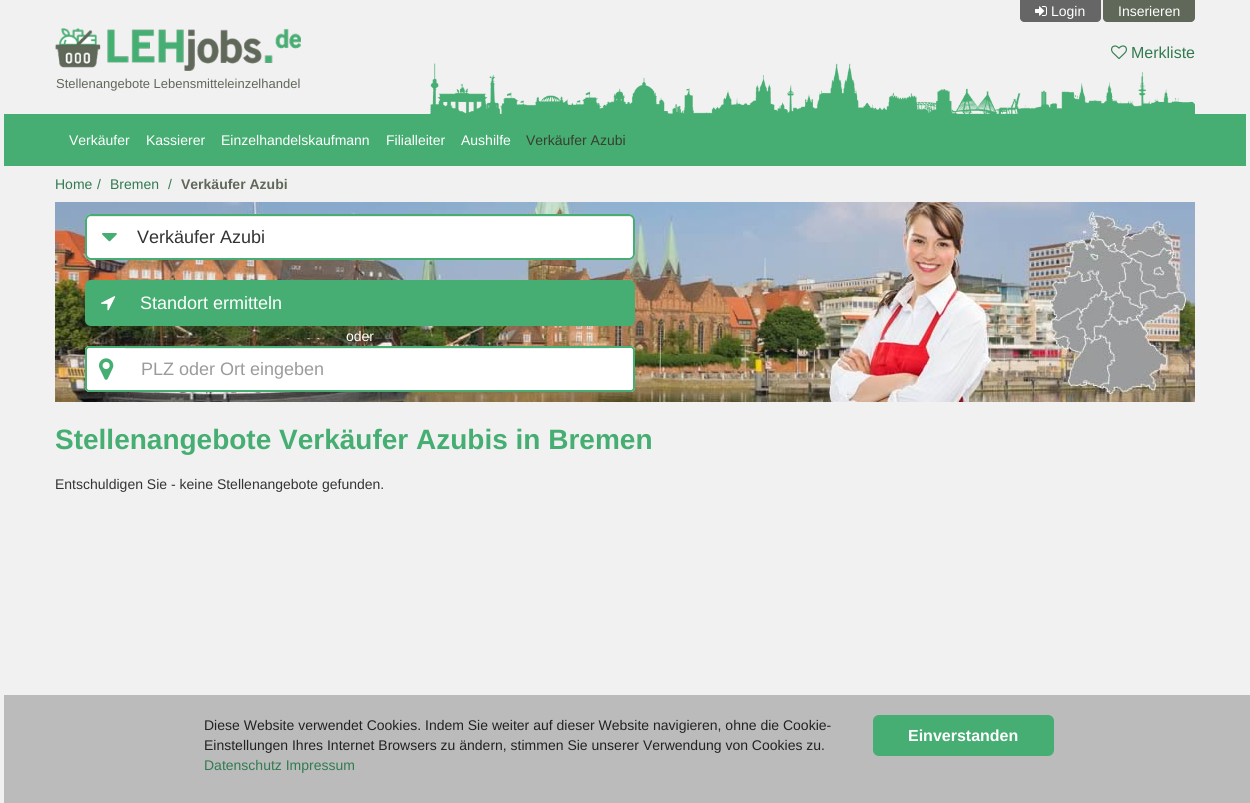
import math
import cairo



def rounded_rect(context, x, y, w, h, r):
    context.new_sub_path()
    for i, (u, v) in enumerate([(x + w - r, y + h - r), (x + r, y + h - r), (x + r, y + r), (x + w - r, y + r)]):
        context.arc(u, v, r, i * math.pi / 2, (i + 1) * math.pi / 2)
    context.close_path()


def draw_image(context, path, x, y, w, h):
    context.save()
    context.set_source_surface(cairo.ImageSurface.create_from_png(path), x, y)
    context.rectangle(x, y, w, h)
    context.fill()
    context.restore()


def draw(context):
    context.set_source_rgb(241 / 255, 241 / 255, 241 / 255)
    context.paint()
    context.set_source_rgb(102 / 255, 102 / 255, 102 / 255)
    context.new_path()
    context.move_to(1020, 0)
    context.line_to(1101, 0)
    context.line_to(1101, 18)
    context.curve_to(1101, 20, 1099, 22, 1097, 22)
    context.line_to(1024, 22)
    context.curve_to(1022, 22, 1020, 20, 1020, 18)
    context.close_path()
    context.fill()
    draw_image(context, "images/1.png", 1035, 6, 12, 10)
    context.set_source_rgb(96 / 255, 104 / 255, 89 / 255)
    context.new_path()
    context.move_to(1103, 0)
    context.line_to(1195, 0)
    context.line_to(1195, 18)
    context.curve_to(1195, 20, 1193, 22, 1191, 22)
    context.line_to(1107, 22)
    context.curve_to(1105, 22, 1103, 20, 1103, 18)
    context.close_path()
    context.fill()
    draw_image(context, "images/2.png", 1111, 45, 16, 15)
    draw_image(context, "images/3.png", 55, 28, 246, 43)
    draw_image(context, "images/4.png", 430, 63, 765, 51)
    context.set_source_rgb(70 / 255, 174 / 255, 114 / 255)
    context.rectangle(4, 114, 1242, 52)
    context.fill()
    draw_image(context, "images/5.png", 55, 202, 1140, 200)
    context.set_source_rgb(1, 1, 1)
    rounded_rect(context, 85, 214, 550, 46, 6)
    context.fill()
    context.set_source_rgb(236 / 255, 236 / 255, 236 / 255)
    context.new_path()
    context.move_to(91, 217)
    context.line_to(629, 217)
    context.curve_to(631, 217, 633, 219, 633, 221)
    context.line_to(633, 220)
    context.curve_to(633, 218, 631, 216, 629, 216)
    context.line_to(91, 216)
    context.curve_to(89, 216, 87, 218, 87, 220)
    context.line_to(87, 221)
    context.curve_to(87, 219, 89, 217, 91, 217)
    context.close_path()
    context.fill()
    rounded_rect(context, 86, 215, 548, 44, 5)
    context.set_source_rgb(70 / 255, 174 / 255, 114 / 255)
    context.stroke()
    draw_image(context, "images/6.png", 102, 233, 15, 9)
    rounded_rect(context, 85, 280, 550, 46, 6)
    context.fill()
    draw_image(context, "images/7.png", 101, 296, 15, 15)
    context.set_source_rgb(1, 1, 1)
    context.new_path()
    context.move_to(89, 346)
    context.line_to(125, 346)
    context.line_to(125, 392)
    context.line_to(89, 392)
    context.curve_to(87, 392, 85, 390, 85, 388)
    context.line_to(85, 350)
    context.curve_to(85, 348, 87, 346, 89, 346)
    context.close_path()
    context.fill()
    context.set_source_rgb(70 / 255, 174 / 255, 114 / 255)
    context.set_fill_rule(cairo.FillRule.EVEN_ODD)
    context.new_path()
    context.move_to(89, 346)
    context.line_to(125, 346)
    context.line_to(125, 392)
    context.line_to(89, 392)
    context.curve_to(87, 392, 85, 390, 85, 388)
    context.line_to(85, 350)
    context.curve_to(85, 348, 87, 346, 89, 346)
    context.close_path()
    context.move_to(89, 348)
    context.line_to(125, 348)
    context.line_to(125, 390)
    context.line_to(89, 390)
    context.curve_to(88, 390, 87, 389, 87, 388)
    context.line_to(87, 350)
    context.curve_to(87, 349, 88, 348, 89, 348)
    context.close_path()
    context.fill()
    draw_image(context, "images/8.png", 99, 358, 15, 22)
    context.set_source_rgb(1, 1, 1)
    context.rectangle(125, 349, 484, 41)
    context.fill()
    context.set_source_rgb(236 / 255, 236 / 255, 236 / 255)
    context.rectangle(125, 348, 484, 1)
    context.fill()
    context.set_source_rgb(70 / 255, 174 / 255, 114 / 255)
    context.rectangle(125, 346, 484, 2)
    context.fill()
    context.rectangle(125, 390, 484, 2)
    context.fill()
    context.set_source_rgb(1, 1, 1)
    context.new_path()
    context.move_to(609, 346)
    context.line_to(631, 346)
    context.curve_to(633, 346, 635, 348, 635, 350)
    context.line_to(635, 388)
    context.curve_to(635, 390, 633, 392, 631, 392)
    context.line_to(609, 392)
    context.close_path()
    context.fill()
    context.set_source_rgb(70 / 255, 174 / 255, 114 / 255)
    context.new_path()
    context.move_to(609, 346)
    context.line_to(631, 346)
    context.curve_to(633, 346, 635, 348, 635, 350)
    context.line_to(635, 388)
    context.curve_to(635, 390, 633, 392, 631, 392)
    context.line_to(609, 392)
    context.close_path()
    context.move_to(609, 348)
    context.line_to(631, 348)
    context.curve_to(632, 348, 633, 349, 633, 350)
    context.line_to(633, 388)
    context.curve_to(633, 389, 632, 390, 631, 390)
    context.line_to(609, 390)
    context.close_path()
    context.fill()
    context.set_source_rgb(187 / 255, 187 / 255, 187 / 255)
    context.rectangle(4, 695, 1246, 108)
    context.fill()
    context.set_source_rgb(70 / 255, 174 / 255, 114 / 255)
    rounded_rect(context, 873, 715, 181, 41, 6)
    context.fill()
    context.select_font_face("Liberation Sans")
    context.set_font_size(14)
    context.set_source_rgb(1, 1, 1)
    context.move_to(1051, 16)
    context.show_text("Login")
    context.move_to(1118, 16)
    context.show_text("Inserieren")
    context.set_font_size(16)
    context.set_source_rgb(49 / 255, 123 / 255, 80 / 255)
    context.move_to(1131, 58)
    context.show_text("Merkliste")
    context.set_font_size(13)
    context.set_source_rgb(96 / 255, 104 / 255, 89 / 255)
    context.move_to(56, 88)
    context.show_text("Stellenangebote Lebensmitteleinzelhandel")
    context.set_font_size(14)
    context.set_source_rgb(1, 1, 1)
    context.move_to(69, 145)
    context.show_text("Verkäufer")
    context.move_to(146, 145)
    context.show_text("Kassierer")
    context.move_to(221, 145)
    context.show_text("Einzelhandelskaufmann")
    context.move_to(386, 145)
    context.show_text("Filialleiter")
    context.move_to(461, 145)
    context.show_text("Aushilfe")
    context.set_source_rgb(55 / 255, 63 / 255, 48 / 255)
    context.move_to(526, 145)
    context.show_text("Verkäufer Azubi")
    context.set_source_rgb(49 / 255, 123 / 255, 80 / 255)
    context.move_to(55, 189)
    context.show_text("Home")
    context.move_to(97, 189)
    context.show_text("/")
    context.move_to(110, 189)
    context.show_text("Bremen")
    context.move_to(168, 189)
    context.show_text("/")
    context.select_font_face("Liberation Sans", cairo.FontSlant.NORMAL, cairo.FontWeight.BOLD)
    context.set_source_rgb(96 / 255, 104 / 255, 89 / 255)
    context.move_to(181, 189)
    context.show_text("Verkäufer Azubi")
    context.select_font_face("Liberation Sans")
    context.set_font_size(18)
    context.set_source_rgb(51 / 255, 51 / 255, 51 / 255)
    context.move_to(137, 243)
    context.show_text("Verkäufer Azubi")
    context.set_source_rgb(1, 1, 1)
    context.move_to(140, 309)
    context.show_text("Standort ermitteln")
    context.set_font_size(14)
    context.move_to(346, 341)
    context.show_text("oder")
    context.set_font_size(18)
    context.set_source_rgb(155 / 255, 155 / 255, 154 / 255)
    context.move_to(141, 375)
    context.show_text("PLZ oder Ort eingeben")
    context.select_font_face("Liberation Sans", cairo.FontSlant.NORMAL, cairo.FontWeight.BOLD)
    context.set_font_size(28)
    context.set_source_rgb(70 / 255, 174 / 255, 114 / 255)
    context.move_to(55, 449)
    context.show_text("Stellenangebote Verkäufer Azubis in Bremen")
    context.select_font_face("Liberation Sans")
    context.set_font_size(14)
    context.set_source_rgb(51 / 255, 51 / 255, 51 / 255)
    context.move_to(55, 489)
    context.show_text("Entschuldigen Sie - keine Stellenangebote gefunden.")
    context.set_source_rgb(34 / 255, 34 / 255, 34 / 255)
    context.move_to(204, 730)
    context.show_text("Diese Website verwendet Cookies. Indem Sie weiter auf dieser Website navigieren, ohne die Cookie-")
    context.move_to(204, 750)
    context.show_text("Einstellungen Ihres Internet Browsers zu ändern, stimmen Sie unserer Verwendung von Cookies zu.")
    context.set_source_rgb(49 / 255, 123 / 255, 80 / 255)
    context.move_to(204, 770)
    context.show_text("Datenschutz Impressum")
    context.select_font_face("Liberation Sans", cairo.FontSlant.NORMAL, cairo.FontWeight.BOLD)
    context.set_font_size(16)
    context.set_source_rgb(1, 1, 1)
    context.move_to(908, 741)
    context.show_text("Einverstanden")


surface = cairo.ImageSurface(cairo.Format.RGB24, 1250, 803)
context = cairo.Context(surface)
options = cairo.FontOptions()
options.set_hint_metrics(cairo.HintMetrics.OFF)
options.set_hint_style(cairo.HintStyle.NONE)
context.set_font_options(options)
context.set_miter_limit(4)
draw(context)
surface.write_to_png("out.png")
